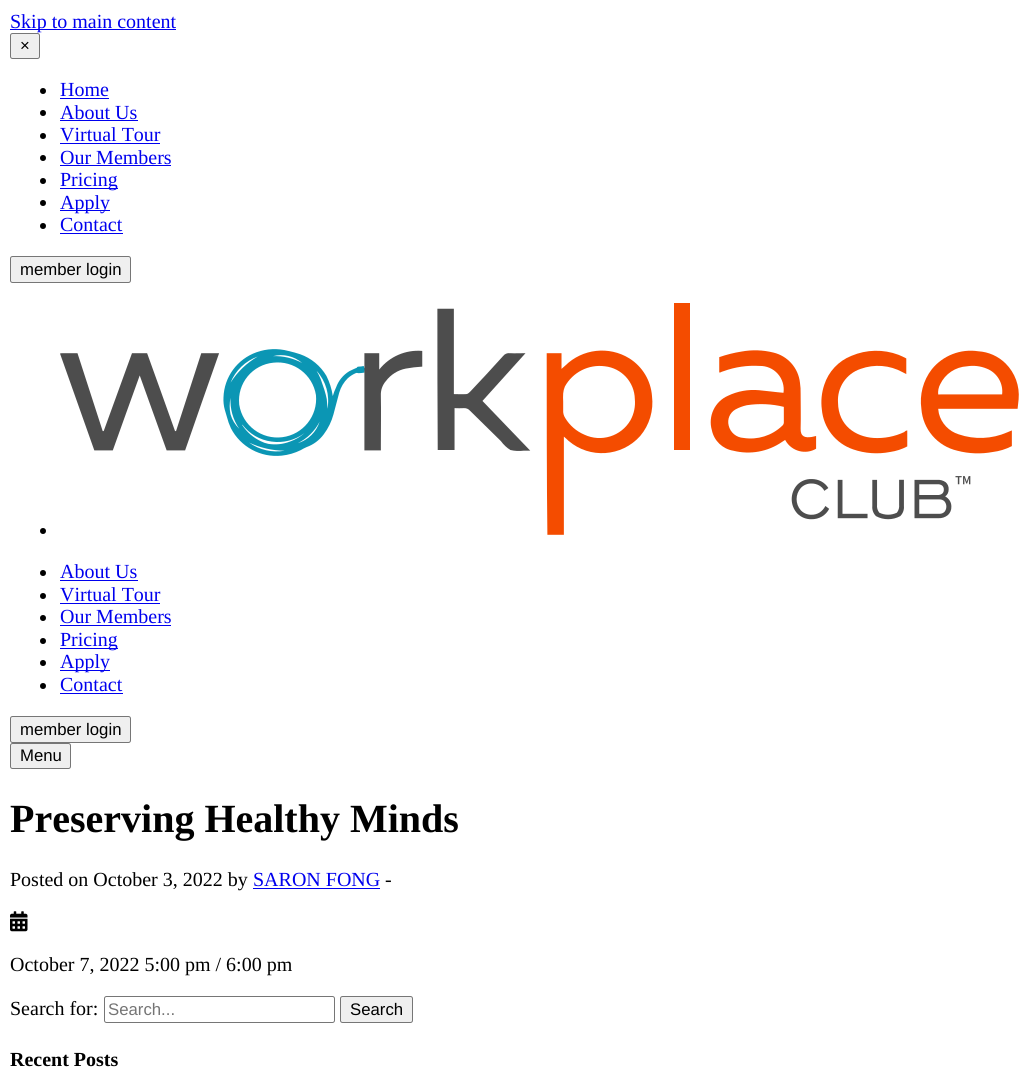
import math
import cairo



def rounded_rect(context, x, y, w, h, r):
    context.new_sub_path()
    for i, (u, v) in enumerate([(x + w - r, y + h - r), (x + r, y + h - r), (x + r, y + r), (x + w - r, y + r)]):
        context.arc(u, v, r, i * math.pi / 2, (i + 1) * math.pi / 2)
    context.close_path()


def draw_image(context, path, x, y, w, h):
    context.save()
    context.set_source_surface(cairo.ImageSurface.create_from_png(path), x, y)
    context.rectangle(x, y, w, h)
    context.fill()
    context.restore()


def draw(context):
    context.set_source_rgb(1, 1, 1)
    context.paint()
    context.set_source_rgb(0, 0, 238 / 255)
    context.rectangle(10, 29, 166, 1)
    context.fill()
    context.set_source_rgb(239 / 255, 239 / 255, 239 / 255)
    rounded_rect(context, 10.5, 33.5, 29, 25, 2)
    context.fill_preserve()
    context.set_source_rgb(118 / 255, 118 / 255, 118 / 255)
    context.set_line_width(1)
    context.stroke()
    context.set_source_rgb(0, 0, 0)
    context.arc(43, 91, 3, 0, 2 * math.pi)
    context.fill()
    context.set_source_rgb(0, 0, 238 / 255)
    context.rectangle(60, 98, 49, 1)
    context.fill()
    context.set_source_rgb(0, 0, 0)
    context.arc(43, 113, 3, 0, 2 * math.pi)
    context.fill()
    context.set_source_rgb(0, 0, 238 / 255)
    context.rectangle(60, 120, 78, 1)
    context.fill()
    context.set_source_rgb(0, 0, 0)
    context.arc(43, 136, 3, 0, 2 * math.pi)
    context.fill()
    context.set_source_rgb(0, 0, 238 / 255)
    context.rectangle(60, 143, 100, 1)
    context.fill()
    context.set_source_rgb(0, 0, 0)
    context.arc(43, 158, 3, 0, 2 * math.pi)
    context.fill()
    context.set_source_rgb(0, 0, 238 / 255)
    context.rectangle(60, 165, 111, 1)
    context.fill()
    context.set_source_rgb(0, 0, 0)
    context.arc(43, 181, 3, 0, 2 * math.pi)
    context.fill()
    context.set_source_rgb(0, 0, 238 / 255)
    context.rectangle(60, 188, 58, 1)
    context.fill()
    context.set_source_rgb(0, 0, 0)
    context.arc(43, 203, 3, 0, 2 * math.pi)
    context.fill()
    context.set_source_rgb(0, 0, 238 / 255)
    context.rectangle(60, 210, 50, 1)
    context.fill()
    context.set_source_rgb(0, 0, 0)
    context.arc(43, 226, 3, 0, 2 * math.pi)
    context.fill()
    context.set_source_rgb(0, 0, 238 / 255)
    context.rectangle(60, 233, 63, 1)
    context.fill()
    context.set_source_rgb(239 / 255, 239 / 255, 239 / 255)
    rounded_rect(context, 10.5, 256.5, 120, 26, 2)
    context.fill_preserve()
    context.set_source_rgb(118 / 255, 118 / 255, 118 / 255)
    context.stroke()
    context.set_source_rgb(0, 0, 0)
    context.arc(43, 531, 3, 0, 2 * math.pi)
    context.fill()
    draw_image(context, "images/1.png", 60, 303, 959, 232)
    context.arc(43, 573, 3, 0, 2 * math.pi)
    context.fill()
    context.set_source_rgb(0, 0, 238 / 255)
    context.rectangle(60, 580, 78, 1)
    context.fill()
    context.set_source_rgb(0, 0, 0)
    context.arc(43, 596, 3, 0, 2 * math.pi)
    context.fill()
    context.set_source_rgb(0, 0, 238 / 255)
    context.rectangle(60, 603, 100, 1)
    context.fill()
    context.set_source_rgb(0, 0, 0)
    context.arc(43, 618, 3, 0, 2 * math.pi)
    context.fill()
    context.set_source_rgb(0, 0, 238 / 255)
    context.rectangle(60, 625, 111, 1)
    context.fill()
    context.set_source_rgb(0, 0, 0)
    context.arc(43, 641, 3, 0, 2 * math.pi)
    context.fill()
    context.set_source_rgb(0, 0, 238 / 255)
    context.rectangle(60, 648, 58, 1)
    context.fill()
    context.set_source_rgb(0, 0, 0)
    context.arc(43, 663, 3, 0, 2 * math.pi)
    context.fill()
    context.set_source_rgb(0, 0, 238 / 255)
    context.rectangle(60, 670, 50, 1)
    context.fill()
    context.set_source_rgb(0, 0, 0)
    context.arc(43, 686, 3, 0, 2 * math.pi)
    context.fill()
    context.set_source_rgb(0, 0, 238 / 255)
    context.rectangle(60, 693, 63, 1)
    context.fill()
    context.set_source_rgb(239 / 255, 239 / 255, 239 / 255)
    rounded_rect(context, 10.5, 716.5, 120, 26, 2)
    context.fill_preserve()
    context.set_source_rgb(118 / 255, 118 / 255, 118 / 255)
    context.stroke()
    context.set_source_rgb(239 / 255, 239 / 255, 239 / 255)
    rounded_rect(context, 10.5, 743.5, 60, 25, 2)
    context.fill_preserve()
    context.set_source_rgb(118 / 255, 118 / 255, 118 / 255)
    context.stroke()
    context.set_source_rgb(0, 0, 238 / 255)
    context.rectangle(253, 888, 127, 1)
    context.fill()
    draw_image(context, "images/2.png", 10, 911, 18, 21)
    rounded_rect(context, 104.5, 996.5, 230, 26, 2)
    context.set_source_rgb(118 / 255, 118 / 255, 118 / 255)
    context.stroke()
    context.set_source_rgb(239 / 255, 239 / 255, 239 / 255)
    rounded_rect(context, 340.5, 996.5, 72, 26, 2)
    context.fill_preserve()
    context.set_source_rgb(118 / 255, 118 / 255, 118 / 255)
    context.stroke()
    context.select_font_face("Liberation Serif")
    context.set_font_size(20)
    context.set_source_rgb(0, 0, 238 / 255)
    context.move_to(10, 28)
    context.show_text("Skip to main content")
    context.select_font_face("Liberation Sans")
    context.set_font_size(16.75)
    context.set_source_rgb(0, 0, 0)
    context.move_to(20, 51)
    context.show_text("×")
    context.select_font_face("Liberation Serif")
    context.set_font_size(20)
    context.set_source_rgb(0, 0, 238 / 255)
    context.move_to(60, 96)
    context.show_text("Home")
    context.move_to(60, 119)
    context.show_text("About Us")
    context.move_to(60, 141)
    context.show_text("Virtual Tour")
    context.move_to(60, 164)
    context.show_text("Our Members")
    context.move_to(60, 186)
    context.show_text("Pricing")
    context.move_to(60, 209)
    context.show_text("Apply")
    context.move_to(60, 231)
    context.show_text("Contact")
    context.select_font_face("Liberation Sans")
    context.set_font_size(16.75)
    context.set_source_rgb(0, 0, 0)
    context.move_to(20, 275)
    context.show_text("member login")
    context.select_font_face("Liberation Serif")
    context.set_font_size(20)
    context.set_source_rgb(0, 0, 238 / 255)
    context.move_to(60, 578)
    context.show_text("About Us")
    context.move_to(60, 601)
    context.show_text("Virtual Tour")
    context.move_to(60, 623)
    context.show_text("Our Members")
    context.move_to(60, 646)
    context.show_text("Pricing")
    context.move_to(60, 668)
    context.show_text("Apply")
    context.move_to(60, 691)
    context.show_text("Contact")
    context.select_font_face("Liberation Sans")
    context.set_font_size(16.75)
    context.set_source_rgb(0, 0, 0)
    context.move_to(20, 735)
    context.show_text("member login")
    context.move_to(20, 761)
    context.show_text("Menu")
    context.select_font_face("Liberation Serif", cairo.FontSlant.NORMAL, cairo.FontWeight.BOLD)
    context.set_font_size(40)
    context.move_to(10, 832)
    context.show_text("Preserving Healthy Minds")
    context.select_font_face("Liberation Serif")
    context.set_font_size(20)
    context.move_to(10, 886)
    context.show_text("Posted on October 3, 2022 by")
    context.set_source_rgb(0, 0, 238 / 255)
    context.move_to(253, 886)
    context.show_text("SARON FONG")
    context.set_source_rgb(0, 0, 0)
    context.move_to(385, 886)
    context.show_text("-")
    context.move_to(10, 971)
    context.show_text("October 7, 2022 5:00 pm / 6:00 pm")
    context.move_to(10, 1015)
    context.show_text("Search for:")
    context.select_font_face("Liberation Sans")
    context.set_font_size(16.75)
    context.set_source_rgb(117 / 255, 117 / 255, 117 / 255)
    context.move_to(108, 1015)
    context.show_text("Search...")
    context.set_source_rgb(0, 0, 0)
    context.move_to(350, 1015)
    context.show_text("Search")
    context.select_font_face("Liberation Serif", cairo.FontSlant.NORMAL, cairo.FontWeight.BOLD)
    context.set_font_size(20)
    context.move_to(10, 1066)
    context.show_text("Recent Posts")


surface = cairo.ImageSurface(cairo.Format.RGB24, 1028, 1070)
context = cairo.Context(surface)
options = cairo.FontOptions()
options.set_hint_metrics(cairo.HintMetrics.OFF)
options.set_hint_style(cairo.HintStyle.NONE)
context.set_font_options(options)
context.set_miter_limit(4)
draw(context)
surface.write_to_png("out.png")
